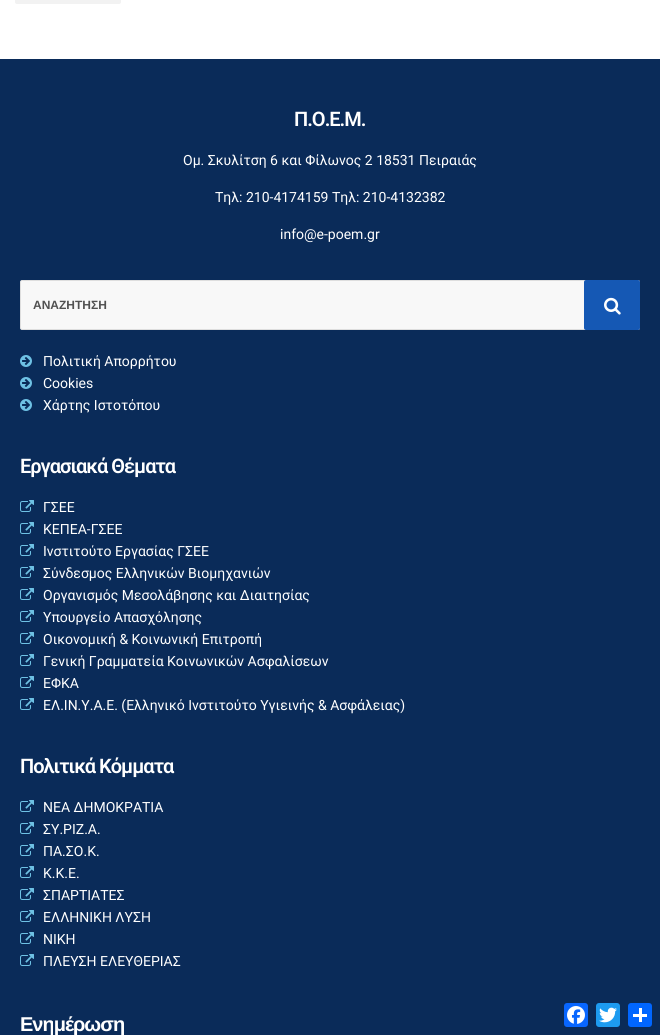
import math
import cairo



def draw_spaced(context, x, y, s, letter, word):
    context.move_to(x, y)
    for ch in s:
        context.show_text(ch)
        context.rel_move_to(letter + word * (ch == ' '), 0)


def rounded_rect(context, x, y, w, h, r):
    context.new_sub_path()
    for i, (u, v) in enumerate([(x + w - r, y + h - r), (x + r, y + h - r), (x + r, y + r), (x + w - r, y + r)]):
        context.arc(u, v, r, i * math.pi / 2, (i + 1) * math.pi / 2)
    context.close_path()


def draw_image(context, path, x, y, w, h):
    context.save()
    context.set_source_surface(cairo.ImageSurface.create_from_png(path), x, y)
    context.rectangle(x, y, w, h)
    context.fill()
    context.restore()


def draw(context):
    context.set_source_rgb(1, 1, 1)
    context.paint()
    context.set_source_rgb(242 / 255, 242 / 255, 242 / 255)
    rounded_rect(context, 15, -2, 106, 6, 2)
    context.fill()
    context.set_source_rgb(10 / 255, 43 / 255, 89 / 255)
    context.rectangle(0, 59, 660, 976)
    context.fill()
    context.set_source_rgb(248 / 255, 248 / 255, 248 / 255)
    rounded_rect(context, 20.5, 280.5, 619, 49, 1.5)
    context.fill_preserve()
    context.set_source_rgb(222 / 255, 222 / 255, 222 / 255)
    context.set_line_width(1)
    context.stroke()
    context.set_source_rgb(21 / 255, 88 / 255, 180 / 255)
    rounded_rect(context, 584, 280, 56, 50, 2)
    context.fill()
    draw_image(context, "images/1.png", 604, 297, 17, 18)
    draw_image(context, "images/2.png", 20, 355, 12, 12)
    draw_image(context, "images/2.png", 20, 377, 12, 12)
    draw_image(context, "images/2.png", 20, 399, 12, 12)
    draw_image(context, "images/3.png", 20, 500, 14, 12)
    draw_image(context, "images/3.png", 20, 522, 14, 12)
    draw_image(context, "images/3.png", 20, 544, 14, 12)
    draw_image(context, "images/3.png", 20, 566, 14, 12)
    draw_image(context, "images/3.png", 20, 588, 14, 12)
    draw_image(context, "images/3.png", 20, 610, 14, 12)
    draw_image(context, "images/3.png", 20, 632, 14, 12)
    draw_image(context, "images/3.png", 20, 654, 14, 12)
    draw_image(context, "images/3.png", 20, 676, 14, 12)
    draw_image(context, "images/3.png", 20, 698, 14, 12)
    draw_image(context, "images/3.png", 20, 800, 14, 12)
    draw_image(context, "images/3.png", 20, 822, 14, 12)
    draw_image(context, "images/3.png", 20, 844, 14, 12)
    draw_image(context, "images/3.png", 20, 866, 14, 12)
    draw_image(context, "images/3.png", 20, 888, 14, 12)
    draw_image(context, "images/3.png", 20, 910, 14, 12)
    draw_image(context, "images/3.png", 20, 932, 14, 12)
    draw_image(context, "images/3.png", 20, 954, 14, 12)
    context.set_source_rgb(8 / 255, 102 / 255, 1)
    rounded_rect(context, 564, 1003, 24, 24, 3)
    context.fill()
    draw_image(context, "images/4.png", 567, 1006, 18, 18)
    context.set_source_rgb(29 / 255, 155 / 255, 240 / 255)
    rounded_rect(context, 596, 1003, 24, 24, 3)
    context.fill()
    draw_image(context, "images/5.png", 599, 1007, 18, 16)
    context.set_source_rgb(1 / 255, 102 / 255, 1)
    rounded_rect(context, 628, 1003, 24, 24, 3)
    context.fill()
    context.set_source_rgb(1, 1, 1)
    context.rectangle(639, 1008, 3, 14)
    context.fill()
    context.rectangle(633, 1014, 14, 3)
    context.fill()
    context.select_font_face("Roboto SemiBold")
    context.set_font_size(20)
    draw_spaced(context, 294, 126, "Π.Ο.Ε.Μ.", -1, 0)
    context.select_font_face("Roboto")
    context.set_font_size(14)
    context.move_to(183, 165)
    context.show_text("Ομ. Σκυλίτση 6 και Φίλωνος 2 18531 Πειραιάς")
    context.move_to(215, 202)
    context.show_text("Τηλ: 210-4174159 Τηλ: 210-4132382")
    context.move_to(280, 239)
    context.show_text("info@e-poem.gr")
    context.select_font_face("Liberation Sans", cairo.FontSlant.NORMAL, cairo.FontWeight.BOLD)
    context.set_font_size(12)
    context.set_source_rgb(81 / 255, 81 / 255, 81 / 255)
    context.move_to(33, 309)
    context.show_text("ΑΝΑΖΗΤΗΣΗ")
    context.select_font_face("Roboto")
    context.set_font_size(14)
    context.set_source_rgb(1, 1, 1)
    context.move_to(43, 366)
    context.show_text("Πολιτική Απορρήτου")
    context.move_to(43, 388)
    context.show_text("Cookies")
    context.move_to(43, 410)
    context.show_text("Χάρτης Ιστοτόπου")
    context.select_font_face("Roboto SemiBold")
    context.set_font_size(20)
    draw_spaced(context, 20, 473, "Εργασιακά Θέματα", -1, 0)
    context.select_font_face("Roboto")
    context.set_font_size(14)
    context.move_to(43, 512)
    context.show_text("ΓΣΕΕ")
    context.move_to(43, 534)
    context.show_text("ΚΕΠΕΑ-ΓΣΕΕ")
    context.move_to(43, 556)
    context.show_text("Iνστιτούτο Εργασίας ΓΣΕΕ")
    context.move_to(43, 578)
    context.show_text("Σύνδεσμος Ελληνικών Βιομηχανιών")
    context.move_to(43, 600)
    context.show_text("Οργανισμός Μεσολάβησης και Διαιτησίας")
    context.move_to(43, 622)
    context.show_text("Yπουργείο Απασχόλησης")
    context.move_to(43, 644)
    context.show_text("Οικονομική & Κοινωνική Επιτροπή")
    context.move_to(43, 666)
    context.show_text("Γενική Γραμματεία Κοινωνικών Ασφαλίσεων")
    context.move_to(43, 688)
    context.show_text("ΕΦΚΑ")
    context.move_to(43, 710)
    context.show_text("ΕΛ.ΙΝ.Υ.Α.Ε. (Ελληνικό Ινστιτούτο Υγιεινής & Ασφάλειας)")
    context.select_font_face("Roboto SemiBold")
    context.set_font_size(20)
    draw_spaced(context, 20, 773, "Πολιτικά Κόμματα", -1, 0)
    context.select_font_face("Roboto")
    context.set_font_size(14)
    context.move_to(43, 812)
    context.show_text("ΝΕΑ ΔΗΜΟΚΡΑΤΙΑ")
    context.move_to(43, 834)
    context.show_text("ΣΥ.ΡΙΖ.Α.")
    context.move_to(43, 856)
    context.show_text("ΠΑ.ΣΟ.Κ.")
    context.move_to(43, 878)
    context.show_text("Κ.Κ.Ε.")
    context.move_to(43, 900)
    context.show_text("ΣΠΑΡΤΙΑΤΕΣ")
    context.move_to(43, 922)
    context.show_text("ΕΛΛΗΝΙΚΗ ΛΥΣΗ")
    context.move_to(43, 944)
    context.show_text("NIKH")
    context.move_to(43, 966)
    context.show_text("ΠΛΕΥΣΗ ΕΛΕΥΘΕΡΙΑΣ")
    context.select_font_face("Liberation Sans", cairo.FontSlant.NORMAL, cairo.FontWeight.BOLD)
    context.set_font_size(20)
    draw_spaced(context, 20, 1031, "Ενημέρωση", -1, 0)


surface = cairo.ImageSurface(cairo.Format.RGB24, 660, 1035)
context = cairo.Context(surface)
options = cairo.FontOptions()
options.set_hint_metrics(cairo.HintMetrics.OFF)
options.set_hint_style(cairo.HintStyle.NONE)
context.set_font_options(options)
context.set_miter_limit(4)
draw(context)
surface.write_to_png("out.png")
